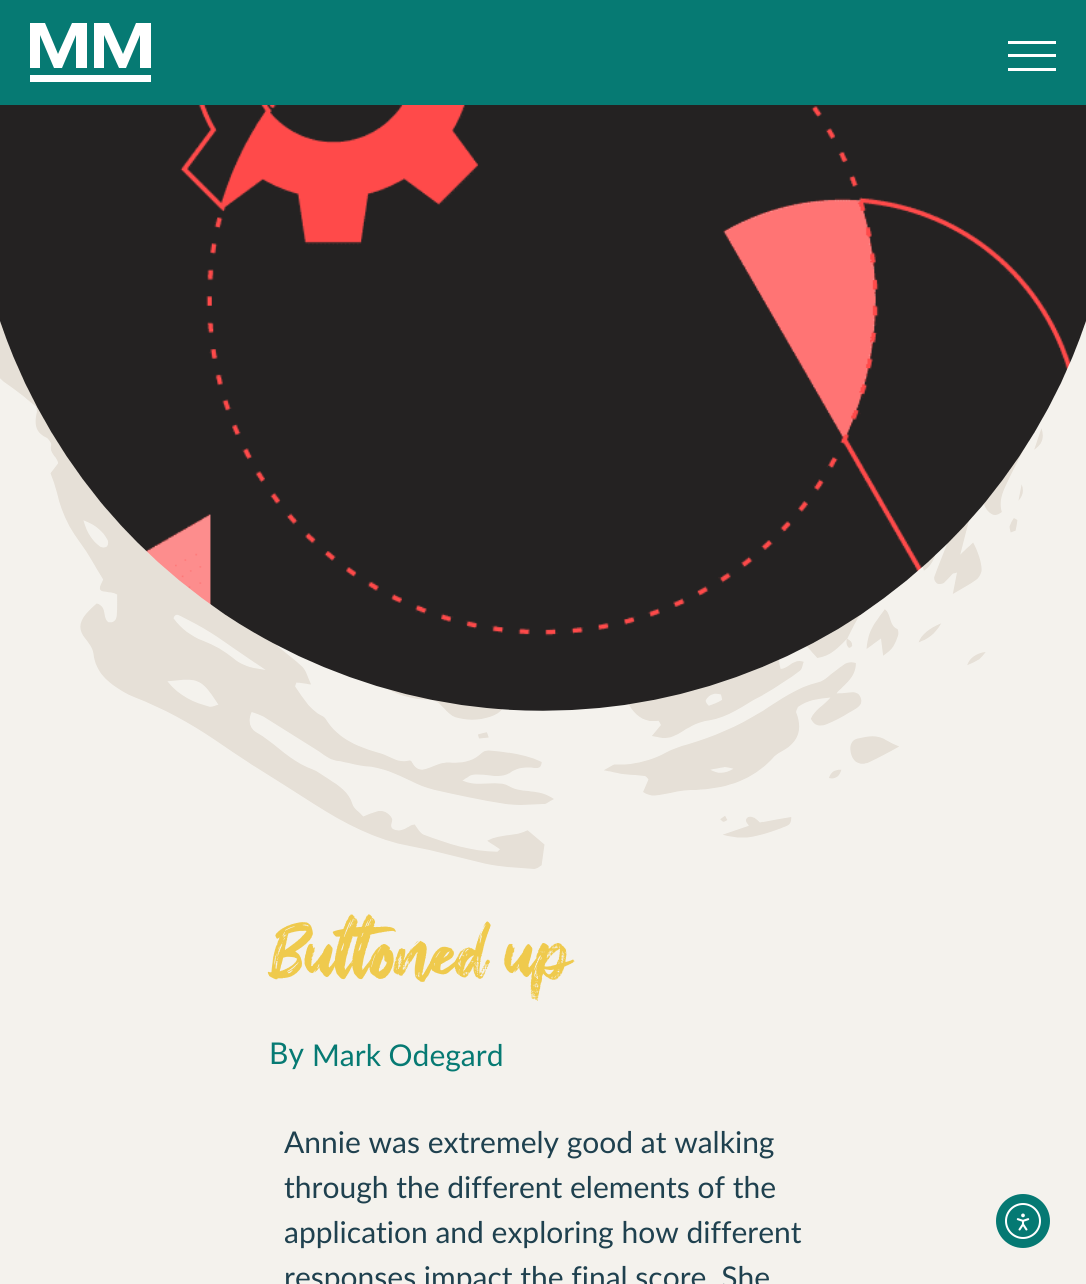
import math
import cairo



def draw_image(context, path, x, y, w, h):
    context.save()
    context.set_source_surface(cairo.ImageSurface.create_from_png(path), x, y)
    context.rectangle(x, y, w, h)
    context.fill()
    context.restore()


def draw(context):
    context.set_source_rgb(244 / 255, 242 / 255, 237 / 255)
    context.paint()
    context.set_source_rgb(6 / 255, 122 / 255, 115 / 255)
    context.rectangle(0, 0, 1086, 105)
    context.fill()
    context.set_source_rgb(1, 1, 1)
    context.new_path()
    context.move_to(72, 23)
    context.line_to(58, 54)
    context.line_to(45, 23)
    context.line_to(30, 23)
    context.line_to(30, 68)
    context.line_to(40, 68)
    context.line_to(40, 35)
    context.line_to(54, 68)
    context.line_to(62, 68)
    context.line_to(76, 35)
    context.line_to(76, 68)
    context.line_to(87, 68)
    context.line_to(87, 23)
    context.close_path()
    context.fill()
    context.new_path()
    context.move_to(136, 23)
    context.line_to(123, 54)
    context.line_to(109, 23)
    context.line_to(94, 23)
    context.line_to(94, 68)
    context.line_to(104, 68)
    context.line_to(104, 35)
    context.line_to(119, 68)
    context.line_to(126, 68)
    context.line_to(140, 35)
    context.line_to(140, 68)
    context.line_to(151, 68)
    context.line_to(151, 23)
    context.close_path()
    context.fill()
    context.rectangle(30, 75, 121, 7)
    context.fill()
    context.rectangle(1008, 41, 48, 3)
    context.fill()
    context.rectangle(1008, 54, 48, 3)
    context.fill()
    context.rectangle(1008, 68, 48, 3)
    context.fill()
    draw_image(context, "images/2.png", 0, 321, 1043, 548)
    draw_image(context, "images/1.png", 0, 105, 1086, 606)
    context.set_source_rgb(5 / 255, 121 / 255, 115 / 255)
    context.arc(1023, 1221, 27, 0, 2 * math.pi)
    context.fill()
    context.arc(1023, 1221, 17, 0, 2 * math.pi)
    context.set_source_rgb(1, 1, 1)
    context.stroke()
    draw_image(context, "images/3.png", 1016, 1213, 14, 18)
    context.select_font_face("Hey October")
    context.set_font_size(72)
    context.set_source_rgb(239 / 255, 202 / 255, 77 / 255)
    context.move_to(269, 979)
    context.show_text("Buttoned up")
    context.select_font_face("Lato")
    context.set_font_size(30)
    context.set_source_rgb(6 / 255, 122 / 255, 115 / 255)
    context.move_to(269, 1064)
    context.show_text("By")
    context.move_to(312, 1066)
    context.show_text("Mark Odegard")
    context.set_source_rgb(31 / 255, 65 / 255, 79 / 255)
    context.move_to(284, 1153)
    context.show_text("Annie was extremely good at walking")
    context.move_to(284, 1198)
    context.show_text("through the different elements of the")
    context.move_to(284, 1243)
    context.show_text("application and exploring how different")
    context.move_to(284, 1288)
    context.show_text("responses impact the final score. She")


surface = cairo.ImageSurface(cairo.Format.RGB24, 1086, 1284)
context = cairo.Context(surface)
options = cairo.FontOptions()
options.set_hint_metrics(cairo.HintMetrics.OFF)
options.set_hint_style(cairo.HintStyle.NONE)
context.set_font_options(options)
context.set_miter_limit(4)
draw(context)
surface.write_to_png("out.png")
